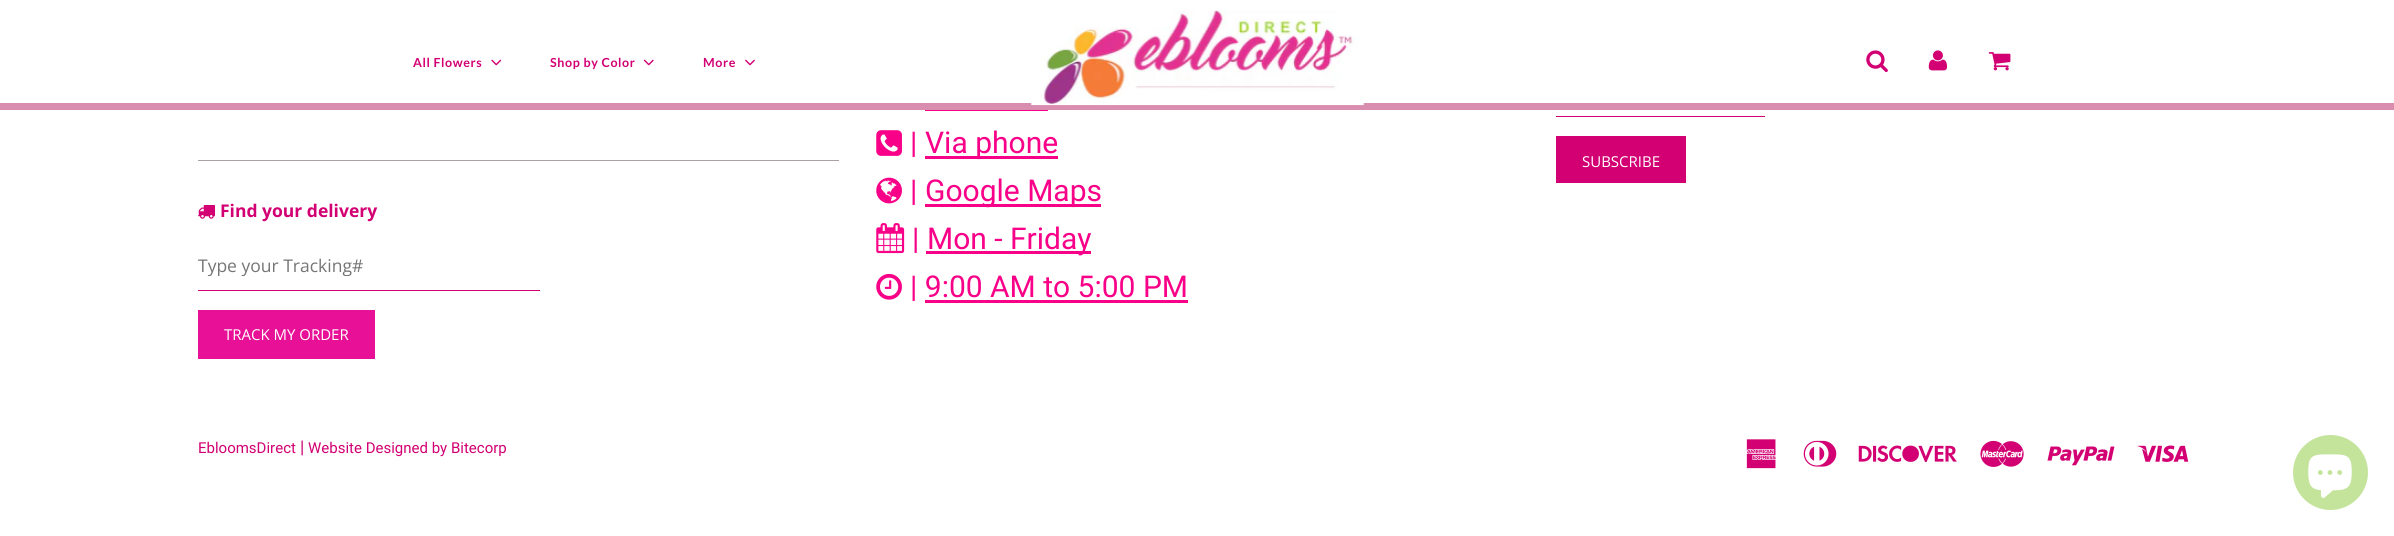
import math
import cairo



def draw_spaced(context, x, y, s, letter, word):
    context.move_to(x, y)
    for ch in s:
        context.show_text(ch)
        context.rel_move_to(letter + word * (ch == ' '), 0)


def draw_image(context, path, x, y, w, h):
    context.save()
    context.set_source_surface(cairo.ImageSurface.create_from_png(path), x, y)
    context.rectangle(x, y, w, h)
    context.fill()
    context.restore()


def draw(context):
    context.set_source_rgb(1, 1, 1)
    context.paint()
    context.set_source_rgb(217 / 255, 141 / 255, 175 / 255)
    context.rectangle(0, 103, 2394, 7)
    context.fill()
    draw_image(context, "images/1.png", 491, 59, 11, 7)
    draw_image(context, "images/2.png", 643, 59, 11, 7)
    draw_image(context, "images/3.png", 745, 59, 10, 7)
    draw_image(context, "images/4.png", 1031, 10, 334, 96)
    draw_image(context, "images/5.png", 1866, 50, 22, 23)
    draw_image(context, "images/6.png", 1928, 50, 20, 21)
    draw_image(context, "images/7.png", 1988, 52, 23, 19)
    context.set_source_rgb(248 / 255, 0, 136 / 255)
    context.rectangle(925, 110, 123, 1)
    context.fill()
    draw_image(context, "images/8.png", 876, 130, 26, 26)
    context.rectangle(925, 156, 133, 3)
    context.fill()
    draw_image(context, "images/9.png", 876, 177, 26, 27)
    context.rectangle(925, 204, 176, 3)
    context.fill()
    draw_image(context, "images/10.png", 876, 223, 29, 31)
    context.rectangle(926, 251, 165, 3)
    context.fill()
    draw_image(context, "images/11.png", 876, 273, 26, 27)
    context.rectangle(925, 300, 263, 3)
    context.fill()
    context.set_source_rgb(210 / 255, 0, 115 / 255)
    context.rectangle(1556, 116, 209, 1)
    context.fill()
    context.rectangle(1556, 136, 130, 47)
    context.fill()
    context.set_source_rgb(172 / 255, 160 / 255, 165 / 255)
    context.rectangle(198, 160, 641, 1)
    context.fill()
    draw_image(context, "images/12.png", 198, 205, 17, 14)
    context.set_source_rgb(210 / 255, 0, 115 / 255)
    context.rectangle(198, 290, 342, 1)
    context.fill()
    context.set_source_rgb(231 / 255, 16 / 255, 150 / 255)
    context.rectangle(198, 310, 177, 49)
    context.fill()
    draw_image(context, "images/13.png", 1746, 439, 30, 30)
    draw_image(context, "images/14.png", 1803, 440, 34, 27)
    draw_image(context, "images/15.png", 1858, 445, 99, 17)
    draw_image(context, "images/16.png", 1980, 440, 44, 27)
    draw_image(context, "images/17.png", 2047, 446, 68, 20)
    draw_image(context, "images/18.png", 2137, 445, 52, 17)
    context.set_source_rgb(196 / 255, 228 / 255, 156 / 255)
    context.arc(2330.5, 472.5, 37.5, 0, 2 * math.pi)
    context.fill()
    draw_image(context, "images/19.png", 2308, 454, 44, 44)
    context.select_font_face("Lato", cairo.FontSlant.NORMAL, cairo.FontWeight.BOLD)
    context.set_font_size(12.5)
    context.set_source_rgb(210 / 255, 0, 115 / 255)
    draw_spaced(context, 413, 67, "All Flowers", 0.6, 0)
    draw_spaced(context, 550, 67, "Shop by Color", 0.6, 0)
    draw_spaced(context, 703, 67, "More", 0.6, 0)
    context.select_font_face("Roboto")
    context.set_font_size(30)
    context.set_source_rgb(248 / 255, 0, 136 / 255)
    context.move_to(910, 153)
    context.show_text("|")
    context.move_to(925, 153)
    context.show_text("Via phone")
    context.move_to(910, 201)
    context.show_text("|")
    context.move_to(925, 201)
    context.show_text("Google Maps")
    context.move_to(912, 249)
    context.show_text("|")
    context.move_to(927, 249)
    context.show_text("Mon - Friday")
    context.move_to(910, 297)
    context.show_text("| 9:00 AM to 5:00 PM")
    context.select_font_face("Open Sans")
    context.set_font_size(15)
    context.set_source_rgb(1, 1, 1)
    context.move_to(1582, 167)
    context.show_text("SUBSCRIBE")
    context.select_font_face("Open Sans", cairo.FontSlant.NORMAL, cairo.FontWeight.BOLD)
    context.set_font_size(17.5)
    context.set_source_rgb(210 / 255, 0, 115 / 255)
    context.move_to(220, 217)
    context.show_text("Find your delivery")
    context.save()
    context.rectangle(198, 253, 330, 23)
    context.clip()
    context.select_font_face("Open Sans")
    context.set_source_rgb(117 / 255, 117 / 255, 117 / 255)
    context.move_to(198, 272)
    context.show_text("Type your Tracking#")
    context.restore()
    context.select_font_face("Open Sans")
    context.set_font_size(15)
    context.set_source_rgb(1, 1, 1)
    context.move_to(224, 340)
    context.show_text("TRACK MY ORDER")
    context.select_font_face("Roboto")
    context.set_source_rgb(210 / 255, 0, 115 / 255)
    context.move_to(198, 453)
    context.show_text("EbloomsDirect")
    context.set_font_size(17.5)
    context.move_to(300, 453)
    context.show_text("|")
    context.set_font_size(15)
    context.move_to(308, 453)
    context.show_text("Website Designed by Bitecorp")


surface = cairo.ImageSurface(cairo.Format.RGB24, 2394, 536)
context = cairo.Context(surface)
options = cairo.FontOptions()
options.set_hint_metrics(cairo.HintMetrics.OFF)
options.set_hint_style(cairo.HintStyle.NONE)
context.set_font_options(options)
context.set_miter_limit(4)
draw(context)
surface.write_to_png("out.png")
